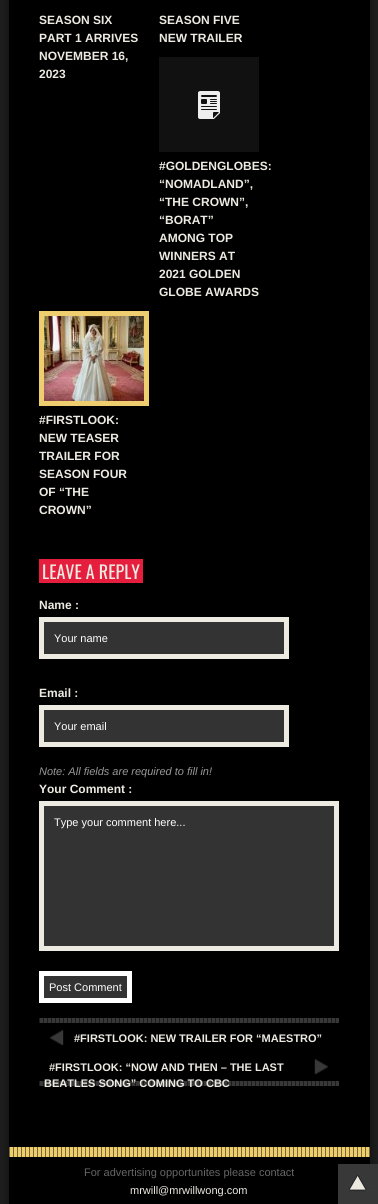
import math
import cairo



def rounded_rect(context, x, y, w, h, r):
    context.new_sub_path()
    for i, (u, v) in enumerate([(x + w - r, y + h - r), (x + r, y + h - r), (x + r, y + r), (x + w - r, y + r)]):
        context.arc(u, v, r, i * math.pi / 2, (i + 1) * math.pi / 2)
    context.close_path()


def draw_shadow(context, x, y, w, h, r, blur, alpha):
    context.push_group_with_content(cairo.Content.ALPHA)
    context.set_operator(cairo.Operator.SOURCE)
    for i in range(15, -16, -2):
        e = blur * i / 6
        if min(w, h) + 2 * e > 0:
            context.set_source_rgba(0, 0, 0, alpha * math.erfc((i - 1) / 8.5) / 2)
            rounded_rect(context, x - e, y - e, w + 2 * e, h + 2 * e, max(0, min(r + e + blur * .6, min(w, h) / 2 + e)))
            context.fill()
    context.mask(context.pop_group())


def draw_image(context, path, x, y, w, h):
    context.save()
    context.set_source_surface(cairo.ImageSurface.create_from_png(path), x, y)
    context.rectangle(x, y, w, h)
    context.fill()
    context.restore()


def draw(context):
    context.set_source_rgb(30 / 255, 30 / 255, 30 / 255)
    context.paint()
    context.set_source_rgb(0, 0, 0)
    draw_shadow(context, 9, -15, 361, 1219, 0, 5, 0.5)
    context.set_source_rgb(0, 0, 0)
    context.rectangle(9, 0, 361, 1204)
    context.fill()
    context.set_source_rgb(17 / 255, 17 / 255, 17 / 255)
    context.rectangle(159, 57, 100, 95)
    context.fill()
    draw_image(context, "images/1.png", 198, 91, 22, 28)
    context.rectangle(41.5, 313.5, 105, 90)
    context.set_source_rgb(239 / 255, 206 / 255, 112 / 255)
    context.set_line_width(5)
    context.stroke()
    draw_image(context, "images/2.png", 44, 316, 100, 85)
    context.set_source_rgb(229 / 255, 30 / 255, 62 / 255)
    context.rectangle(39, 559, 104, 24)
    context.fill()
    context.set_source_rgb(51 / 255, 51 / 255, 51 / 255)
    context.rectangle(41.5, 619.5, 245, 37)
    context.fill_preserve()
    context.set_source_rgb(237 / 255, 234 / 255, 226 / 255)
    context.stroke()
    context.set_source_rgb(51 / 255, 51 / 255, 51 / 255)
    context.rectangle(41.5, 707.5, 245, 37)
    context.fill_preserve()
    context.set_source_rgb(237 / 255, 234 / 255, 226 / 255)
    context.stroke()
    context.set_source_rgb(51 / 255, 51 / 255, 51 / 255)
    context.rectangle(41.5, 803.5, 295, 145)
    context.fill_preserve()
    context.set_source_rgb(237 / 255, 234 / 255, 226 / 255)
    context.stroke()
    context.set_source_rgb(51 / 255, 51 / 255, 51 / 255)
    context.rectangle(41.5, 973.5, 88, 27)
    context.fill_preserve()
    context.set_source_rgb(1, 1, 1)
    context.stroke()
    context.set_source_rgb(56 / 255, 56 / 255, 56 / 255)
    context.rectangle(39, 1018, 300, 5)
    context.fill()
    draw_image(context, "images/3.png", 39, 1018, 297, 5)
    draw_image(context, "images/4.png", 50, 1030, 14, 15)
    draw_image(context, "images/5.png", 314, 1059, 14, 15)
    context.rectangle(39, 1081, 300, 5)
    context.fill()
    draw_image(context, "images/3.png", 39, 1081, 297, 5)
    context.set_source_rgb(239 / 255, 206 / 255, 112 / 255)
    context.rectangle(9, 1147, 361, 10)
    context.fill()
    draw_image(context, "images/6.png", 9, 1147, 361, 10)
    draw_image(context, "images/7.png", 338, 1164, 40, 40)
    context.select_font_face("Liberation Sans", cairo.FontSlant.NORMAL, cairo.FontWeight.BOLD)
    context.set_font_size(12)
    context.set_source_rgb(237 / 255, 234 / 255, 226 / 255)
    context.move_to(39, 24)
    context.show_text("SEASON SIX")
    context.move_to(39, 42)
    context.show_text("PART 1 ARRIVES")
    context.move_to(39, 60)
    context.show_text("NOVEMBER 16,")
    context.move_to(39, 78)
    context.show_text("2023")
    context.move_to(159, 24)
    context.show_text("SEASON FIVE")
    context.move_to(159, 42)
    context.show_text("NEW TRAILER")
    context.move_to(159, 170)
    context.show_text("#GOLDENGLOBES:")
    context.move_to(159, 188)
    context.show_text("“NOMADLAND”,")
    context.move_to(159, 206)
    context.show_text("“THE CROWN”,")
    context.move_to(159, 224)
    context.show_text("“BORAT”")
    context.move_to(159, 242)
    context.show_text("AMONG TOP")
    context.move_to(159, 260)
    context.show_text("WINNERS AT")
    context.move_to(159, 278)
    context.show_text("2021 GOLDEN")
    context.move_to(159, 296)
    context.show_text("GLOBE AWARDS")
    context.move_to(39, 424)
    context.show_text("#FIRSTLOOK:")
    context.move_to(39, 442)
    context.show_text("NEW TEASER")
    context.move_to(39, 460)
    context.show_text("TRAILER FOR")
    context.move_to(39, 478)
    context.show_text("SEASON FOUR")
    context.move_to(39, 496)
    context.show_text("OF “THE")
    context.move_to(39, 514)
    context.show_text("CROWN”")
    context.select_font_face("Oswald")
    context.set_font_size(18)
    context.move_to(42, 579)
    context.show_text("LEAVE A REPLY")
    context.select_font_face("Liberation Sans", cairo.FontSlant.NORMAL, cairo.FontWeight.BOLD)
    context.set_font_size(12)
    context.move_to(39, 609)
    context.show_text("Name :")
    context.select_font_face("Liberation Sans")
    context.set_font_size(11)
    context.set_source_rgb(1, 1, 1)
    context.move_to(54, 642)
    context.show_text("Your name")
    context.select_font_face("Liberation Sans", cairo.FontSlant.NORMAL, cairo.FontWeight.BOLD)
    context.set_font_size(12)
    context.set_source_rgb(237 / 255, 234 / 255, 226 / 255)
    context.move_to(39, 697)
    context.show_text("Email :")
    context.select_font_face("Liberation Sans")
    context.set_font_size(11)
    context.set_source_rgb(1, 1, 1)
    context.move_to(54, 730)
    context.show_text("Your email")
    context.select_font_face("Liberation Sans", cairo.FontSlant.ITALIC)
    context.set_source_rgb(153 / 255, 153 / 255, 153 / 255)
    context.move_to(39, 775)
    context.show_text("Note: All fields are required to fill in!")
    context.select_font_face("Liberation Sans", cairo.FontSlant.NORMAL, cairo.FontWeight.BOLD)
    context.set_font_size(12)
    context.set_source_rgb(237 / 255, 234 / 255, 226 / 255)
    context.move_to(39, 793)
    context.show_text("Your Comment :")
    context.select_font_face("Liberation Sans")
    context.set_font_size(11)
    context.set_source_rgb(1, 1, 1)
    context.move_to(54, 826)
    context.show_text("Type your comment here...")
    context.move_to(49, 991)
    context.show_text("Post Comment")
    context.select_font_face("Liberation Sans", cairo.FontSlant.NORMAL, cairo.FontWeight.BOLD)
    context.set_source_rgb(237 / 255, 234 / 255, 226 / 255)
    context.move_to(74, 1042)
    context.show_text("#FIRSTLOOK: NEW TRAILER FOR “MAESTRO”")
    context.move_to(49, 1071)
    context.show_text("#FIRSTLOOK: “NOW AND THEN – THE LAST")
    context.move_to(44, 1087)
    context.show_text("BEATLES SONG” COMING TO CBC")
    context.select_font_face("Liberation Sans")
    context.set_source_rgb(102 / 255, 102 / 255, 102 / 255)
    context.move_to(84, 1176)
    context.show_text("For advertising opportunites please contact")
    context.set_source_rgb(237 / 255, 234 / 255, 226 / 255)
    context.move_to(130, 1194)
    context.show_text("mrwill@mrwillwong.com")


surface = cairo.ImageSurface(cairo.Format.RGB24, 378, 1204)
context = cairo.Context(surface)
options = cairo.FontOptions()
options.set_hint_metrics(cairo.HintMetrics.OFF)
options.set_hint_style(cairo.HintStyle.NONE)
context.set_font_options(options)
context.set_miter_limit(4)
draw(context)
surface.write_to_png("out.png")
